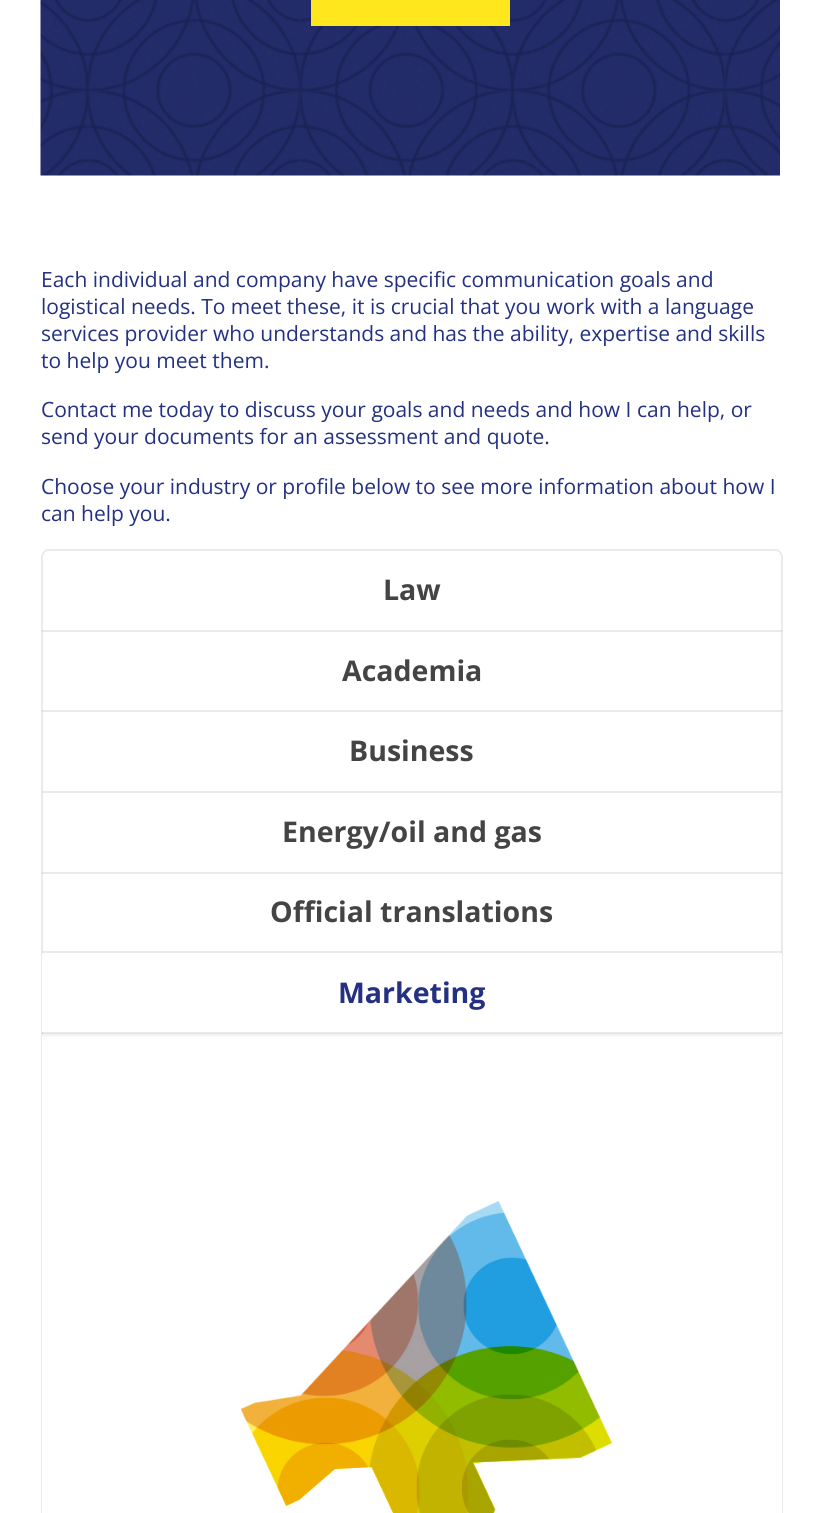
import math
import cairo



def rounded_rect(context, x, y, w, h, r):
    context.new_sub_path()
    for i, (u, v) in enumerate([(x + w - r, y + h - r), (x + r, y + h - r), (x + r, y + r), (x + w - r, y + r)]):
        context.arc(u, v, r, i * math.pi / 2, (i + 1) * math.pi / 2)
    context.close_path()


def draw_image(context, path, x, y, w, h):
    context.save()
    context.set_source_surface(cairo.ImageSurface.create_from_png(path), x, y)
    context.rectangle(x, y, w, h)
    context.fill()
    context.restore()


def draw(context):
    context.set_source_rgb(1, 1, 1)
    context.paint()
    draw_image(context, "images/1.png", 40, 0, 740, 176)
    context.set_source_rgb(1, 231 / 255, 30 / 255)
    context.rectangle(311, 0, 199, 26)
    context.fill()
    rounded_rect(context, 42, 550, 740, 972, 7)
    context.set_source_rgb(235 / 255, 235 / 255, 235 / 255)
    context.stroke()
    context.set_source_rgba(0, 0, 0, 0.08)
    context.rectangle(42, 1032, 740, 2)
    context.fill()
    context.rectangle(42, 630, 740, 2)
    context.fill()
    context.rectangle(42, 710, 740, 2)
    context.fill()
    context.rectangle(42, 791, 740, 2)
    context.fill()
    context.rectangle(42, 872, 740, 2)
    context.fill()
    context.rectangle(42, 951, 740, 2)
    context.fill()
    context.set_source_rgb(1, 1, 1)
    context.rectangle(42, 953, 740, 79)
    context.fill()
    context.rectangle(42, 1034, 740, 479)
    context.fill()
    draw_image(context, "images/2.png", 42, 1033, 739, 4)
    draw_image(context, "images/3.png", 240, 1201, 373, 312)
    context.select_font_face("Open Sans")
    context.set_font_size(21)
    context.set_source_rgb(36 / 255, 49 / 255, 130 / 255)
    context.move_to(41, 287)
    context.show_text("Each individual and company have specific communication goals and")
    context.move_to(41, 314)
    context.show_text("logistical needs. To meet these, it is crucial that you work with a language")
    context.move_to(41, 341)
    context.show_text("services provider who understands and has the ability, expertise and skills")
    context.move_to(41, 368)
    context.show_text("to help you meet them.")
    context.move_to(41, 417)
    context.show_text("Contact me today to discuss your goals and needs and how I can help, or")
    context.move_to(41, 444)
    context.show_text("send your documents for an assessment and quote.")
    context.move_to(41, 494)
    context.show_text("Choose your industry or profile below to see more information about how I")
    context.move_to(41, 521)
    context.show_text("can help you.")
    context.select_font_face("Open Sans", cairo.FontSlant.NORMAL, cairo.FontWeight.BOLD)
    context.set_font_size(28.5)
    context.set_source_rgb(68 / 255, 68 / 255, 68 / 255)
    context.move_to(383, 600)
    context.show_text("Law")
    context.move_to(342, 681)
    context.show_text("Academia")
    context.move_to(349, 761)
    context.show_text("Business")
    context.move_to(282, 842)
    context.show_text("Energy/oil and gas")
    context.move_to(270, 922)
    context.show_text("Official translations")
    context.set_source_rgb(36 / 255, 49 / 255, 130 / 255)
    context.move_to(338, 1003)
    context.show_text("Marketing")


surface = cairo.ImageSurface(cairo.Format.RGB24, 820, 1513)
context = cairo.Context(surface)
options = cairo.FontOptions()
options.set_hint_metrics(cairo.HintMetrics.OFF)
options.set_hint_style(cairo.HintStyle.NONE)
context.set_font_options(options)
context.set_miter_limit(4)
draw(context)
surface.write_to_png("out.png")
